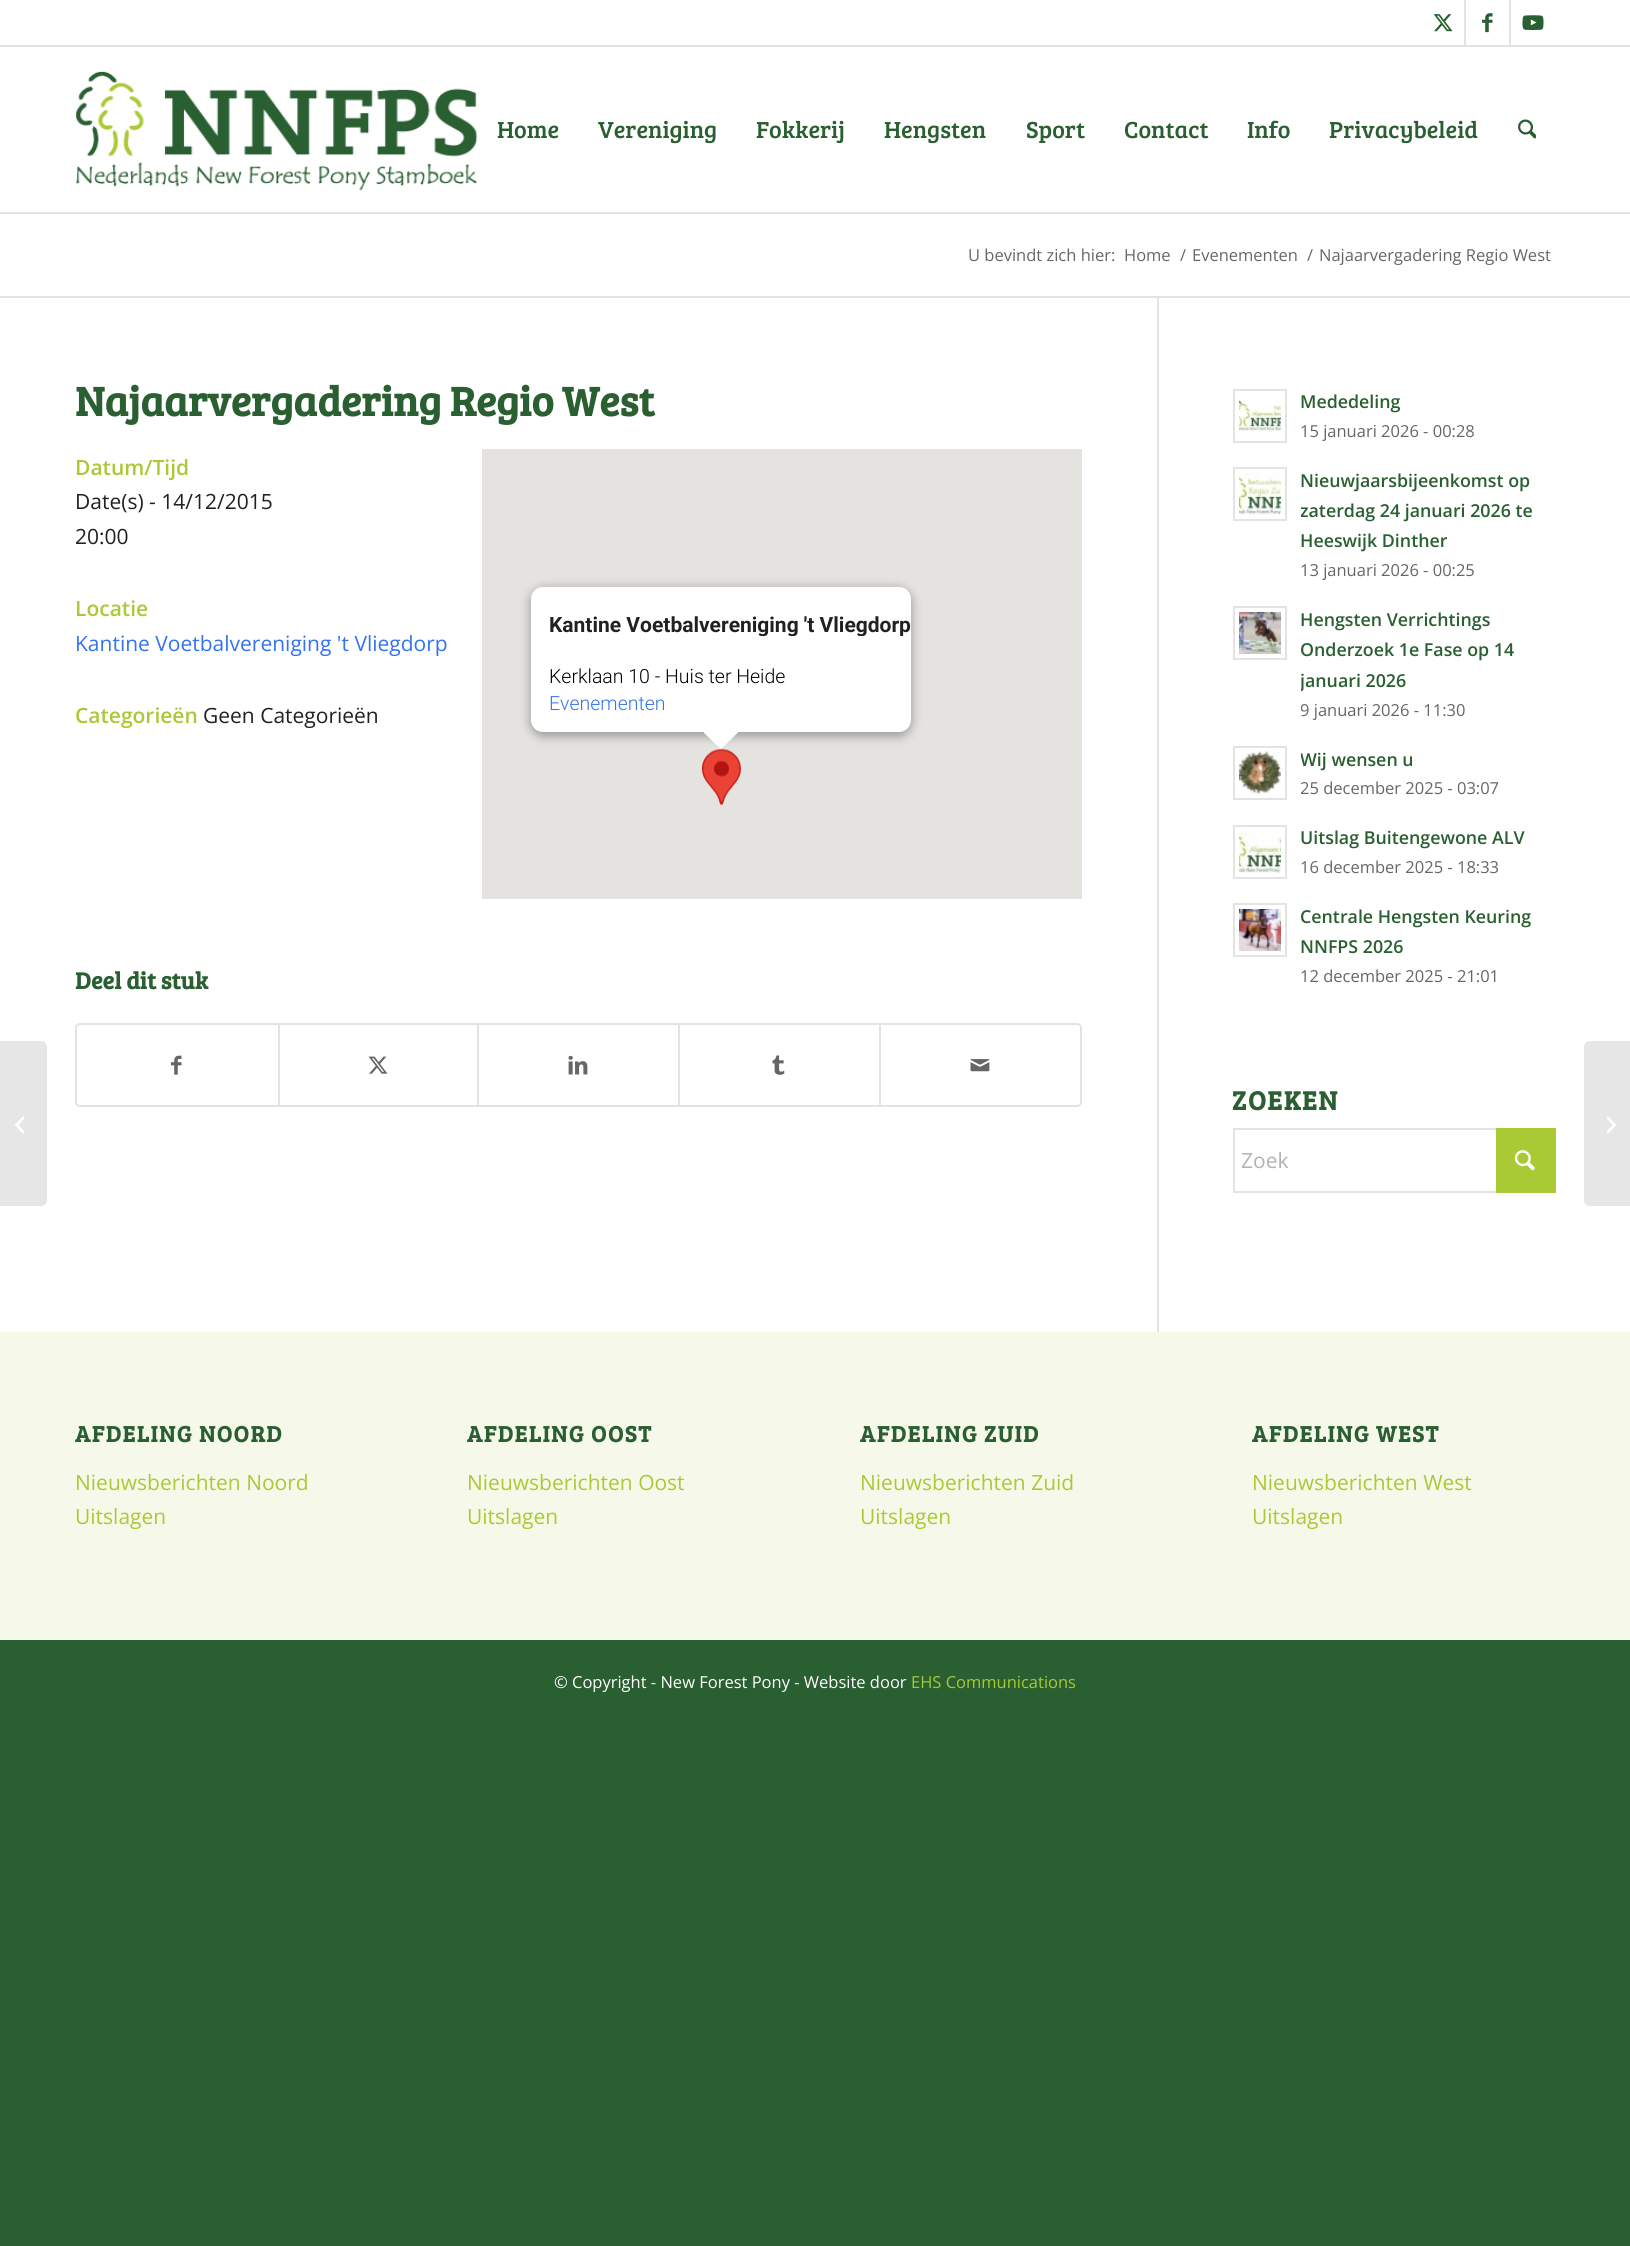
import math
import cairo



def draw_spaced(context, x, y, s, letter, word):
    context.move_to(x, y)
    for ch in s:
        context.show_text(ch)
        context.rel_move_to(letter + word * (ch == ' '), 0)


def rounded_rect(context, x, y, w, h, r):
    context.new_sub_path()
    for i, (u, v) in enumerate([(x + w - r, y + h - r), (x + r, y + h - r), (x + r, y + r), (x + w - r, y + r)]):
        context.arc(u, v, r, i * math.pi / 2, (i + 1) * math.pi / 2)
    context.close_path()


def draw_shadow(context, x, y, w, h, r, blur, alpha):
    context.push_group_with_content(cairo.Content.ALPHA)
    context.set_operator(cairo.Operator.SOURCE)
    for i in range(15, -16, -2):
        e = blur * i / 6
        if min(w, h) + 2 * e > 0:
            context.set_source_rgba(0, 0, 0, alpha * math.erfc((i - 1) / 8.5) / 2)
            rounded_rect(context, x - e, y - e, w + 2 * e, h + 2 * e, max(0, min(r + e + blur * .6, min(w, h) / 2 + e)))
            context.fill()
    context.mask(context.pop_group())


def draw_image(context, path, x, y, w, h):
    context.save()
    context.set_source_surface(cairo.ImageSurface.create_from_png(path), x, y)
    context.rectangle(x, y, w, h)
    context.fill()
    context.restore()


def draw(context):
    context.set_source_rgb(41 / 255, 95 / 255, 49 / 255)
    context.paint()
    context.set_source_rgb(1, 1, 1)
    context.rectangle(0, 214, 1630, 1118)
    context.fill()
    context.rectangle(0, 47, 1630, 163)
    context.fill()
    context.rectangle(0, 0, 1630, 45)
    context.fill()
    context.set_source_rgb(227 / 255, 227 / 255, 227 / 255)
    context.rectangle(0, 45, 1630, 2)
    context.fill()
    context.rectangle(1464, 0, 2, 45)
    context.fill()
    draw_image(context, "images/1.png", 1433, 14, 20, 18)
    context.rectangle(1509, 0, 2, 45)
    context.fill()
    draw_image(context, "images/2.png", 1482, 13, 11, 20)
    draw_image(context, "images/3.png", 1522, 15, 22, 16)
    context.rectangle(0, 212, 1630, 2)
    context.fill()
    draw_image(context, "images/4.png", 76, 71, 401, 120)
    draw_image(context, "images/5.png", 1518, 119, 18, 20)
    context.set_source_rgb(230 / 255, 230 / 255, 230 / 255)
    context.new_path()
    context.move_to(0, 1041)
    context.line_to(41, 1041)
    context.curve_to(44.5, 1041, 47, 1043.5, 47, 1047)
    context.line_to(47, 1200)
    context.curve_to(47, 1203.5, 44.5, 1206, 41, 1206)
    context.line_to(0, 1206)
    context.close_path()
    context.fill()
    draw_image(context, "images/6.png", 15, 1116, 9, 18)
    context.set_source_rgb(254 / 255, 254 / 255, 254 / 255)
    context.rectangle(0, 210, 1630, 2)
    context.fill()
    context.set_source_rgb(227 / 255, 227 / 255, 227 / 255)
    context.rectangle(0, 296, 1630, 2)
    context.fill()
    context.rectangle(1157, 297, 2, 1035)
    context.fill()
    context.set_source_rgb(229 / 255, 227 / 255, 223 / 255)
    context.rectangle(482, 449, 600, 450)
    context.fill()
    draw_image(context, "images/7.png", 702, 748, 39, 58)
    context.set_source_rgb(0, 0, 0)
    draw_shadow(context, 530, 588, 382, 149, 14, 5, 0.3)
    context.set_source_rgb(1, 1, 1)
    rounded_rect(context, 531, 587, 380, 145, 12)
    context.fill()
    context.new_path()
    context.move_to(704, 733)
    context.line_to(704, 731)
    context.line_to(739.5, 731)
    context.line_to(721, 749)
    context.close_path()
    context.fill()
    rounded_rect(context, 76, 1024, 1005, 82, 4)
    context.set_source_rgb(227 / 255, 227 / 255, 227 / 255)
    context.stroke()
    draw_image(context, "images/8.png", 171, 1055, 11, 20)
    context.rectangle(278, 1025, 2, 81)
    context.fill()
    draw_image(context, "images/9.png", 368, 1056, 20, 18)
    context.rectangle(477, 1025, 2, 81)
    context.fill()
    draw_image(context, "images/10.png", 568, 1055, 20, 20)
    context.rectangle(678, 1025, 2, 81)
    context.fill()
    draw_image(context, "images/11.png", 772, 1055, 13, 20)
    context.rectangle(879, 1025, 2, 81)
    context.fill()
    draw_image(context, "images/12.png", 970, 1059, 20, 13)
    context.rectangle(1234, 390, 52, 52)
    context.stroke()
    draw_image(context, "images/13.png", 1239, 400, 42, 31)
    context.rectangle(1234, 468, 52, 52)
    context.stroke()
    draw_image(context, "images/14.png", 1239, 472, 42, 43)
    context.rectangle(1234, 607, 52, 52)
    context.stroke()
    draw_image(context, "images/15.png", 1239, 612, 42, 42)
    context.rectangle(1234, 747, 52, 52)
    context.stroke()
    draw_image(context, "images/16.png", 1239, 751, 42, 43)
    context.rectangle(1234, 826, 52, 52)
    context.stroke()
    draw_image(context, "images/17.png", 1239, 831, 42, 42)
    context.rectangle(1234, 904, 52, 52)
    context.stroke()
    draw_image(context, "images/18.png", 1239, 909, 42, 42)
    context.rectangle(1234, 1129, 321, 63)
    context.stroke()
    context.set_source_rgb(169 / 255, 201 / 255, 53 / 255)
    context.rectangle(1496, 1128, 60, 65)
    context.fill()
    draw_image(context, "images/19.png", 1514, 1150, 21, 21)
    context.set_source_rgb(246 / 255, 249 / 255, 234 / 255)
    context.rectangle(0, 1332, 1630, 308)
    context.fill()
    context.set_source_rgb(230 / 255, 230 / 255, 230 / 255)
    context.new_path()
    context.move_to(1590, 1041)
    context.line_to(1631, 1041)
    context.line_to(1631, 1206)
    context.line_to(1590, 1206)
    context.curve_to(1586.5, 1206, 1584, 1203.5, 1584, 1200)
    context.line_to(1584, 1047)
    context.curve_to(1584, 1043.5, 1586.5, 1041, 1590, 1041)
    context.close_path()
    context.fill()
    draw_image(context, "images/20.png", 1607, 1116, 9, 18)
    context.select_font_face("Bree Serif")
    context.set_font_size(24)
    context.set_source_rgb(41 / 255, 95 / 255, 49 / 255)
    context.move_to(497, 138)
    context.show_text("Home")
    context.move_to(598, 138)
    context.show_text("Vereniging")
    context.move_to(756, 138)
    context.show_text("Fokkerij")
    context.move_to(884, 138)
    context.show_text("Hengsten")
    context.move_to(1026, 138)
    context.show_text("Sport")
    context.move_to(1124, 138)
    context.show_text("Contact")
    context.move_to(1247, 138)
    context.show_text("Info")
    context.move_to(1329, 138)
    context.show_text("Privacybeleid")
    context.select_font_face("Open Sans")
    context.set_font_size(16.5)
    context.set_source_rgb(102 / 255, 102 / 255, 102 / 255)
    context.move_to(968, 261)
    context.show_text("U bevindt zich hier:")
    context.move_to(1124, 261)
    context.show_text("Home")
    context.move_to(1180, 261)
    context.show_text("/")
    context.move_to(1192, 261)
    context.show_text("Evenementen")
    context.move_to(1307, 261)
    context.show_text("/")
    context.move_to(1319, 261)
    context.show_text("Najaarvergadering Regio West")
    context.select_font_face("Bree Serif", cairo.FontSlant.NORMAL, cairo.FontWeight.BOLD)
    context.set_font_size(42)
    context.set_source_rgb(41 / 255, 95 / 255, 49 / 255)
    context.move_to(75, 416)
    context.show_text("Najaarvergadering Regio West")
    context.select_font_face("Open Sans SemiBold")
    context.set_font_size(21)
    context.set_source_rgb(169 / 255, 201 / 255, 53 / 255)
    context.move_to(75, 475)
    context.show_text("Datum/Tijd")
    context.select_font_face("Open Sans")
    context.set_source_rgb(33 / 255, 33 / 255, 33 / 255)
    context.move_to(75, 509)
    context.show_text("Date(s) - 14/12/2015")
    context.move_to(75, 544)
    context.show_text("20:00")
    context.select_font_face("Open Sans SemiBold")
    context.set_source_rgb(169 / 255, 201 / 255, 53 / 255)
    context.move_to(75, 616)
    context.show_text("Locatie")
    context.select_font_face("Open Sans")
    context.set_source_rgb(51 / 255, 114 / 255, 240 / 255)
    context.move_to(75, 651)
    context.show_text("Kantine Voetbalvereniging 't Vliegdorp")
    context.save()
    context.rectangle(549, 587, 362, 49)
    context.clip()
    context.select_font_face("Roboto", cairo.FontSlant.NORMAL, cairo.FontWeight.BOLD)
    context.set_source_rgb(33 / 255, 33 / 255, 33 / 255)
    context.move_to(549, 632)
    context.show_text("Kantine Voetbalvereniging 't Vliegdorp")
    context.restore()
    context.select_font_face("Roboto Light")
    context.set_font_size(19.5)
    context.set_source_rgb(0, 0, 0)
    context.move_to(549, 683)
    context.show_text("Kerklaan 10 - Huis ter Heide")
    context.set_source_rgb(51 / 255, 114 / 255, 240 / 255)
    context.move_to(549, 710)
    context.show_text("Evenementen")
    context.select_font_face("Open Sans SemiBold")
    context.set_font_size(21)
    context.set_source_rgb(169 / 255, 201 / 255, 53 / 255)
    context.move_to(75, 723)
    context.show_text("Categorieën")
    context.select_font_face("Open Sans")
    context.set_source_rgb(33 / 255, 33 / 255, 33 / 255)
    context.move_to(203, 723)
    context.show_text("Geen Categorieën")
    context.select_font_face("Bree Serif", cairo.FontSlant.NORMAL, cairo.FontWeight.BOLD)
    context.set_font_size(24)
    context.set_source_rgb(41 / 255, 95 / 255, 49 / 255)
    context.move_to(75, 989)
    context.show_text("Deel dit stuk")
    context.select_font_face("Open Sans SemiBold")
    context.set_font_size(17.8)
    context.move_to(1300, 408)
    context.show_text("Mededeling")
    context.select_font_face("Open Sans")
    context.set_font_size(16.5)
    context.set_source_rgb(102 / 255, 102 / 255, 102 / 255)
    context.move_to(1300, 437)
    context.show_text("15 januari 2026 - 00:28")
    context.select_font_face("Open Sans SemiBold")
    context.set_font_size(17.8)
    context.set_source_rgb(41 / 255, 95 / 255, 49 / 255)
    context.move_to(1300, 487)
    context.show_text("Nieuwjaarsbijeenkomst op")
    context.save()
    context.rectangle(1301, 464, 255, 121)
    context.clip()
    context.move_to(1300, 517)
    context.show_text("zaterdag 24 januari 2026 te")
    context.restore()
    context.move_to(1300, 547)
    context.show_text("Heeswijk Dinther")
    context.select_font_face("Open Sans")
    context.set_font_size(16.5)
    context.set_source_rgb(102 / 255, 102 / 255, 102 / 255)
    context.move_to(1300, 576)
    context.show_text("13 januari 2026 - 00:25")
    context.select_font_face("Open Sans SemiBold")
    context.set_font_size(17.8)
    context.set_source_rgb(41 / 255, 95 / 255, 49 / 255)
    context.move_to(1300, 626)
    context.show_text("Hengsten Verrichtings")
    context.save()
    context.rectangle(1301, 603, 255, 122)
    context.clip()
    context.move_to(1300, 656)
    context.show_text("Onderzoek 1e Fase op 14")
    context.move_to(1300, 687)
    context.show_text("januari 2026")
    context.select_font_face("Open Sans")
    context.set_font_size(16.5)
    context.set_source_rgb(102 / 255, 102 / 255, 102 / 255)
    context.move_to(1300, 716)
    context.show_text("9 januari 2026 - 11:30")
    context.restore()
    context.save()
    context.rectangle(1301, 743, 255, 61)
    context.clip()
    context.move_to(1300, 766)
    context.show_text("Wij wensen u")
    context.select_font_face("Open Sans")
    context.set_font_size(16.5)
    context.set_source_rgb(102 / 255, 102 / 255, 102 / 255)
    context.move_to(1300, 794)
    context.show_text("25 december 2025 - 03:07")
    context.restore()
    context.move_to(1300, 844)
    context.show_text("Uitslag Buitengewone ALV")
    context.select_font_face("Open Sans")
    context.set_font_size(16.5)
    context.set_source_rgb(102 / 255, 102 / 255, 102 / 255)
    context.move_to(1300, 873)
    context.show_text("16 december 2025 - 18:33")
    context.save()
    context.rectangle(1301, 900, 255, 92)
    context.clip()
    context.select_font_face("Open Sans SemiBold")
    context.set_font_size(17.8)
    context.set_source_rgb(41 / 255, 95 / 255, 49 / 255)
    context.move_to(1300, 923)
    context.show_text("Centrale Hengsten Keuring")
    context.restore()
    context.select_font_face("Open Sans SemiBold")
    context.set_font_size(17.8)
    context.set_source_rgb(41 / 255, 95 / 255, 49 / 255)
    context.move_to(1300, 953)
    context.show_text("NNFPS 2026")
    context.select_font_face("Open Sans")
    context.set_font_size(16.5)
    context.set_source_rgb(102 / 255, 102 / 255, 102 / 255)
    context.move_to(1300, 982)
    context.show_text("12 december 2025 - 21:01")
    context.select_font_face("Bree Serif", cairo.FontSlant.NORMAL, cairo.FontWeight.BOLD)
    context.set_font_size(27)
    context.set_source_rgb(41 / 255, 95 / 255, 49 / 255)
    draw_spaced(context, 1232, 1110, "ZOEKEN", 1.5, 0)
    context.select_font_face("Open Sans")
    context.set_font_size(21)
    context.set_source_rgb(179 / 255, 179 / 255, 179 / 255)
    context.move_to(1241, 1168)
    context.show_text("Zoek")
    context.select_font_face("Bree Serif", cairo.FontSlant.NORMAL, cairo.FontWeight.BOLD)
    context.set_font_size(23)
    context.set_source_rgb(41 / 255, 95 / 255, 49 / 255)
    draw_spaced(context, 75, 1442, "AFDELING NOORD", 1.5, 0)
    context.select_font_face("Open Sans")
    context.set_font_size(21)
    context.set_source_rgb(169 / 255, 201 / 255, 53 / 255)
    context.move_to(75, 1490)
    context.show_text("Nieuwsberichten Noord")
    context.move_to(75, 1524)
    context.show_text("Uitslagen")
    context.select_font_face("Bree Serif", cairo.FontSlant.NORMAL, cairo.FontWeight.BOLD)
    context.set_font_size(23)
    context.set_source_rgb(41 / 255, 95 / 255, 49 / 255)
    draw_spaced(context, 467, 1442, "AFDELING OOST", 1.5, 0)
    context.select_font_face("Open Sans")
    context.set_font_size(21)
    context.set_source_rgb(169 / 255, 201 / 255, 53 / 255)
    context.move_to(467, 1490)
    context.show_text("Nieuwsberichten Oost")
    context.move_to(467, 1524)
    context.show_text("Uitslagen")
    context.select_font_face("Bree Serif", cairo.FontSlant.NORMAL, cairo.FontWeight.BOLD)
    context.set_font_size(23)
    context.set_source_rgb(41 / 255, 95 / 255, 49 / 255)
    draw_spaced(context, 860, 1442, "AFDELING ZUID", 1.5, 0)
    context.select_font_face("Open Sans")
    context.set_font_size(21)
    context.set_source_rgb(169 / 255, 201 / 255, 53 / 255)
    context.move_to(860, 1490)
    context.show_text("Nieuwsberichten Zuid")
    context.move_to(860, 1524)
    context.show_text("Uitslagen")
    context.select_font_face("Bree Serif", cairo.FontSlant.NORMAL, cairo.FontWeight.BOLD)
    context.set_font_size(23)
    context.set_source_rgb(41 / 255, 95 / 255, 49 / 255)
    draw_spaced(context, 1252, 1442, "AFDELING WEST", 1.5, 0)
    context.select_font_face("Open Sans")
    context.set_font_size(21)
    context.set_source_rgb(169 / 255, 201 / 255, 53 / 255)
    context.move_to(1252, 1490)
    context.show_text("Nieuwsberichten West")
    context.move_to(1252, 1524)
    context.show_text("Uitslagen")
    context.set_font_size(16.5)
    context.set_source_rgb(1, 1, 1)
    context.move_to(554, 1688)
    context.show_text("© Copyright - New Forest Pony - Website door")
    context.set_source_rgb(169 / 255, 201 / 255, 53 / 255)
    context.move_to(911, 1688)
    context.show_text("EHS Communications")


surface = cairo.ImageSurface(cairo.Format.RGB24, 1630, 2246)
context = cairo.Context(surface)
options = cairo.FontOptions()
options.set_hint_metrics(cairo.HintMetrics.OFF)
options.set_hint_style(cairo.HintStyle.NONE)
context.set_font_options(options)
context.set_miter_limit(4)
draw(context)
surface.write_to_png("out.png")
